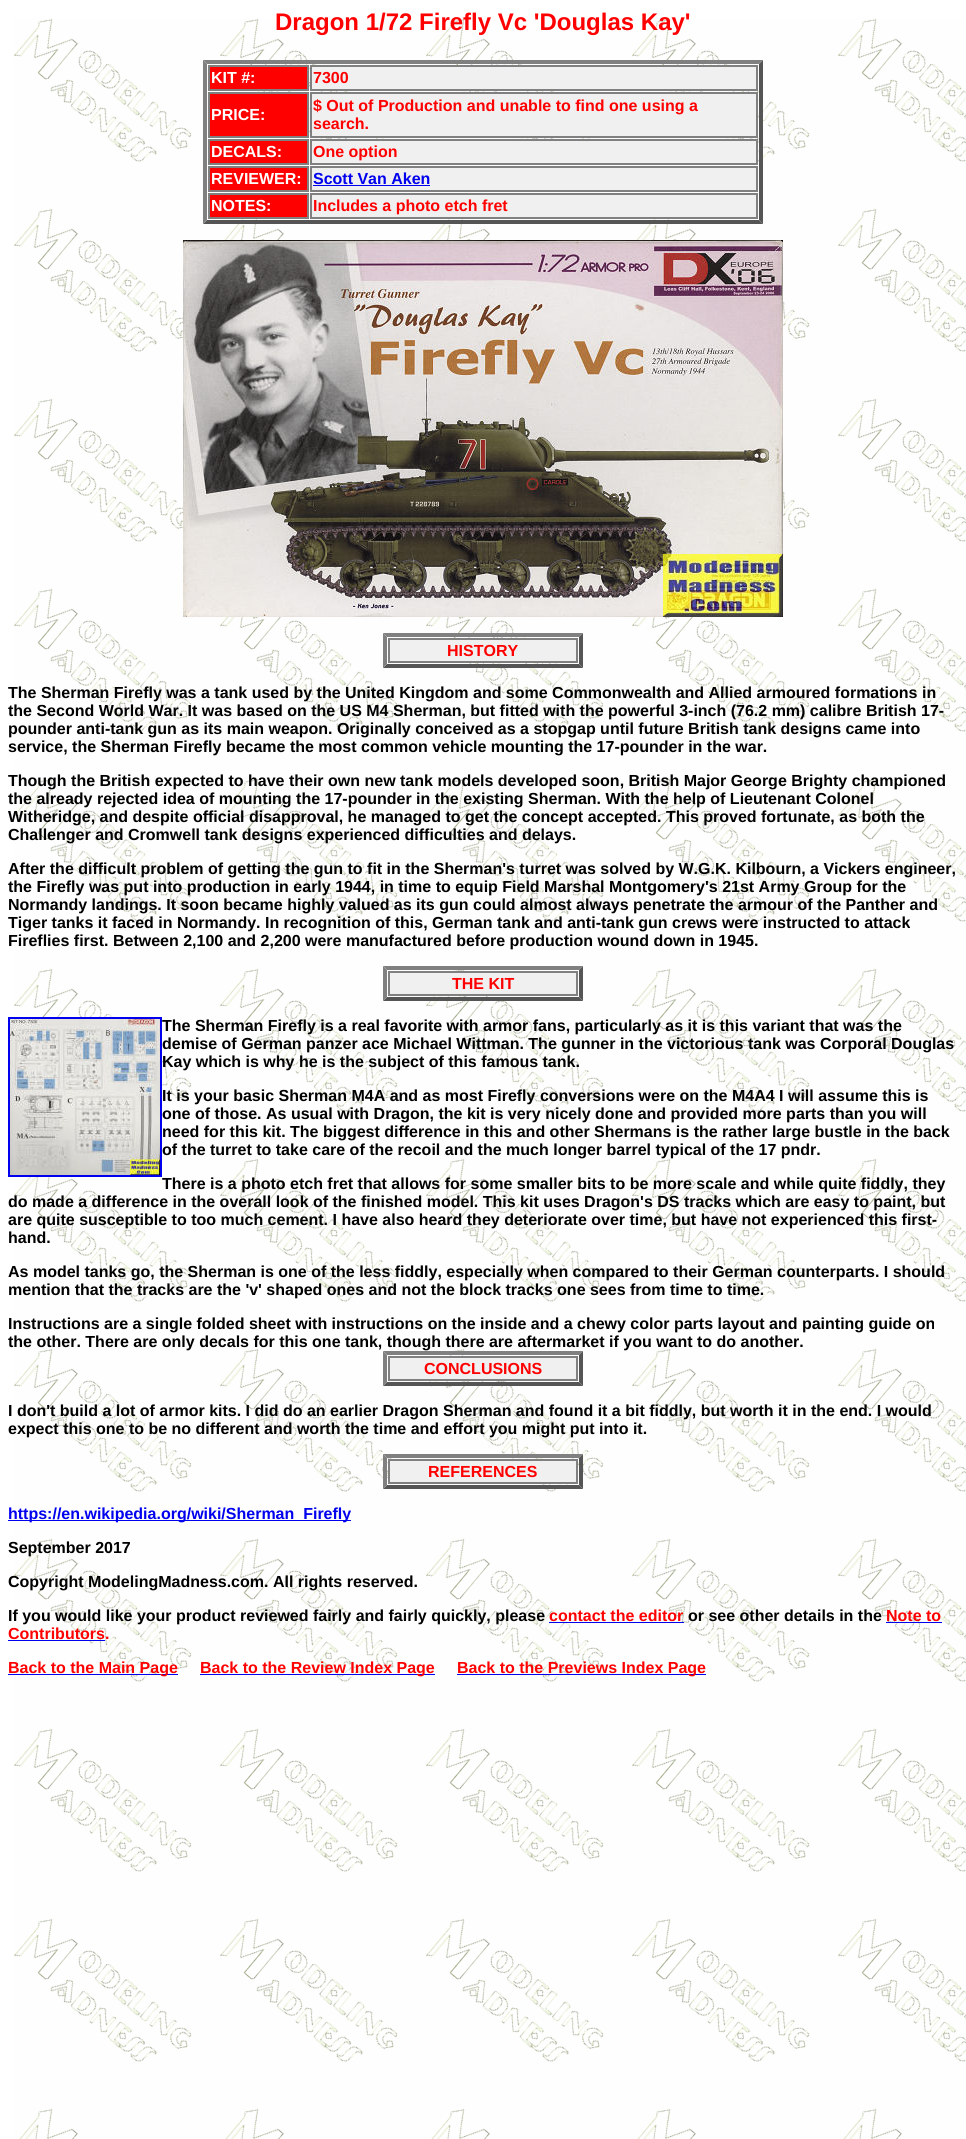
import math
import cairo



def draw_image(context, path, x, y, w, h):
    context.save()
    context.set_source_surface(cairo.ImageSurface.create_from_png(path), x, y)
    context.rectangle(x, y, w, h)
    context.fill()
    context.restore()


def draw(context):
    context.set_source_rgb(1, 1, 1)
    context.paint()
    draw_image(context, "images/1.png", 14, 18, 952, 2121)
    context.set_source_rgb(128 / 255, 128 / 255, 128 / 255)
    context.new_path()
    context.move_to(203, 60)
    context.line_to(763, 60)
    context.line_to(759, 64)
    context.line_to(207, 64)
    context.close_path()
    context.fill()
    context.set_source_rgb(85 / 255, 85 / 255, 85 / 255)
    context.new_path()
    context.move_to(763, 60)
    context.line_to(763, 224)
    context.line_to(759, 220)
    context.line_to(759, 64)
    context.close_path()
    context.fill()
    context.new_path()
    context.move_to(763, 224)
    context.line_to(203, 224)
    context.line_to(207, 220)
    context.line_to(759, 220)
    context.close_path()
    context.fill()
    context.set_source_rgb(128 / 255, 128 / 255, 128 / 255)
    context.new_path()
    context.move_to(203, 224)
    context.line_to(203, 60)
    context.line_to(207, 64)
    context.line_to(207, 220)
    context.close_path()
    context.fill()
    context.set_source_rgb(1, 0, 0)
    context.rectangle(209, 66, 99, 24)
    context.fill_preserve()
    context.set_source_rgb(128 / 255, 128 / 255, 128 / 255)
    context.stroke()
    context.set_source_rgb(240 / 255, 240 / 255, 240 / 255)
    context.rectangle(311, 66, 446, 24)
    context.fill_preserve()
    context.set_source_rgb(128 / 255, 128 / 255, 128 / 255)
    context.stroke()
    context.set_source_rgb(1, 0, 0)
    context.rectangle(209, 93, 99, 44)
    context.fill_preserve()
    context.set_source_rgb(128 / 255, 128 / 255, 128 / 255)
    context.stroke()
    context.set_source_rgb(240 / 255, 240 / 255, 240 / 255)
    context.rectangle(311, 93, 446, 44)
    context.fill_preserve()
    context.set_source_rgb(128 / 255, 128 / 255, 128 / 255)
    context.stroke()
    context.set_source_rgb(1, 0, 0)
    context.rectangle(209, 140, 99, 24)
    context.fill_preserve()
    context.set_source_rgb(128 / 255, 128 / 255, 128 / 255)
    context.stroke()
    context.set_source_rgb(240 / 255, 240 / 255, 240 / 255)
    context.rectangle(311, 140, 446, 24)
    context.fill_preserve()
    context.set_source_rgb(128 / 255, 128 / 255, 128 / 255)
    context.stroke()
    context.set_source_rgb(1, 0, 0)
    context.rectangle(209, 167, 99, 24)
    context.fill_preserve()
    context.set_source_rgb(128 / 255, 128 / 255, 128 / 255)
    context.stroke()
    context.set_source_rgb(240 / 255, 240 / 255, 240 / 255)
    context.rectangle(311, 167, 446, 24)
    context.fill_preserve()
    context.set_source_rgb(128 / 255, 128 / 255, 128 / 255)
    context.stroke()
    context.set_source_rgb(0, 0, 238 / 255)
    context.rectangle(313, 185, 117, 1)
    context.fill()
    context.set_source_rgb(1, 0, 0)
    context.rectangle(209, 194, 99, 24)
    context.fill_preserve()
    context.set_source_rgb(128 / 255, 128 / 255, 128 / 255)
    context.stroke()
    context.set_source_rgb(240 / 255, 240 / 255, 240 / 255)
    context.rectangle(311, 194, 446, 24)
    context.fill_preserve()
    context.set_source_rgb(128 / 255, 128 / 255, 128 / 255)
    context.stroke()
    draw_image(context, "images/2.png", 183, 240, 600, 377)
    context.new_path()
    context.move_to(383, 633)
    context.line_to(583, 633)
    context.line_to(579, 637)
    context.line_to(387, 637)
    context.close_path()
    context.fill()
    context.set_source_rgb(85 / 255, 85 / 255, 85 / 255)
    context.new_path()
    context.move_to(583, 633)
    context.line_to(583, 668)
    context.line_to(579, 664)
    context.line_to(579, 637)
    context.close_path()
    context.fill()
    context.new_path()
    context.move_to(583, 668)
    context.line_to(383, 668)
    context.line_to(387, 664)
    context.line_to(579, 664)
    context.close_path()
    context.fill()
    context.set_source_rgb(128 / 255, 128 / 255, 128 / 255)
    context.new_path()
    context.move_to(383, 668)
    context.line_to(383, 633)
    context.line_to(387, 637)
    context.line_to(387, 664)
    context.close_path()
    context.fill()
    context.set_source_rgb(240 / 255, 240 / 255, 240 / 255)
    context.rectangle(389, 639, 188, 23)
    context.fill_preserve()
    context.set_source_rgb(128 / 255, 128 / 255, 128 / 255)
    context.stroke()
    context.new_path()
    context.move_to(383, 966)
    context.line_to(583, 966)
    context.line_to(579, 970)
    context.line_to(387, 970)
    context.close_path()
    context.fill()
    context.set_source_rgb(85 / 255, 85 / 255, 85 / 255)
    context.new_path()
    context.move_to(583, 966)
    context.line_to(583, 1001)
    context.line_to(579, 997)
    context.line_to(579, 970)
    context.close_path()
    context.fill()
    context.new_path()
    context.move_to(583, 1001)
    context.line_to(383, 1001)
    context.line_to(387, 997)
    context.line_to(579, 997)
    context.close_path()
    context.fill()
    context.set_source_rgb(128 / 255, 128 / 255, 128 / 255)
    context.new_path()
    context.move_to(383, 1001)
    context.line_to(383, 966)
    context.line_to(387, 970)
    context.line_to(387, 997)
    context.close_path()
    context.fill()
    context.set_source_rgb(240 / 255, 240 / 255, 240 / 255)
    context.rectangle(389, 972, 188, 23)
    context.fill_preserve()
    context.set_source_rgb(128 / 255, 128 / 255, 128 / 255)
    context.stroke()
    context.rectangle(9, 1018, 152, 158)
    context.set_source_rgb(0, 0, 238 / 255)
    context.stroke()
    draw_image(context, "images/3.png", 10, 1019, 150, 156)
    context.set_source_rgb(128 / 255, 128 / 255, 128 / 255)
    context.new_path()
    context.move_to(383, 1351)
    context.line_to(583, 1351)
    context.line_to(579, 1355)
    context.line_to(387, 1355)
    context.close_path()
    context.fill()
    context.set_source_rgb(85 / 255, 85 / 255, 85 / 255)
    context.new_path()
    context.move_to(583, 1351)
    context.line_to(583, 1386)
    context.line_to(579, 1382)
    context.line_to(579, 1355)
    context.close_path()
    context.fill()
    context.new_path()
    context.move_to(583, 1386)
    context.line_to(383, 1386)
    context.line_to(387, 1382)
    context.line_to(579, 1382)
    context.close_path()
    context.fill()
    context.set_source_rgb(128 / 255, 128 / 255, 128 / 255)
    context.new_path()
    context.move_to(383, 1386)
    context.line_to(383, 1351)
    context.line_to(387, 1355)
    context.line_to(387, 1382)
    context.close_path()
    context.fill()
    context.set_source_rgb(240 / 255, 240 / 255, 240 / 255)
    context.rectangle(389, 1357, 188, 23)
    context.fill_preserve()
    context.set_source_rgb(128 / 255, 128 / 255, 128 / 255)
    context.stroke()
    context.new_path()
    context.move_to(383, 1454)
    context.line_to(583, 1454)
    context.line_to(579, 1458)
    context.line_to(387, 1458)
    context.close_path()
    context.fill()
    context.set_source_rgb(85 / 255, 85 / 255, 85 / 255)
    context.new_path()
    context.move_to(583, 1454)
    context.line_to(583, 1489)
    context.line_to(579, 1485)
    context.line_to(579, 1458)
    context.close_path()
    context.fill()
    context.new_path()
    context.move_to(583, 1489)
    context.line_to(383, 1489)
    context.line_to(387, 1485)
    context.line_to(579, 1485)
    context.close_path()
    context.fill()
    context.set_source_rgb(128 / 255, 128 / 255, 128 / 255)
    context.new_path()
    context.move_to(383, 1489)
    context.line_to(383, 1454)
    context.line_to(387, 1458)
    context.line_to(387, 1485)
    context.close_path()
    context.fill()
    context.set_source_rgb(240 / 255, 240 / 255, 240 / 255)
    context.rectangle(389, 1460, 188, 23)
    context.fill_preserve()
    context.set_source_rgb(128 / 255, 128 / 255, 128 / 255)
    context.stroke()
    context.set_source_rgb(0, 0, 238 / 255)
    context.rectangle(8, 1520, 343, 1)
    context.fill()
    context.rectangle(549, 1622, 135, 1)
    context.fill()
    context.rectangle(886, 1622, 56, 1)
    context.fill()
    context.rectangle(8, 1640, 97, 1)
    context.fill()
    context.rectangle(8, 1674, 170, 1)
    context.fill()
    context.rectangle(200, 1674, 235, 1)
    context.fill()
    context.rectangle(457, 1674, 249, 1)
    context.fill()
    context.select_font_face("Liberation Sans", cairo.FontSlant.NORMAL, cairo.FontWeight.BOLD)
    context.set_font_size(24)
    context.set_source_rgb(1, 0, 0)
    context.move_to(275, 30)
    context.show_text("Dragon 1/72 Firefly Vc 'Douglas Kay'")
    context.set_font_size(16)
    context.set_source_rgb(1, 1, 1)
    context.move_to(211, 83)
    context.show_text("KIT #:")
    context.set_source_rgb(1, 0, 0)
    context.move_to(313, 83)
    context.show_text("7300")
    context.set_source_rgb(1, 1, 1)
    context.move_to(211, 120)
    context.show_text("PRICE:")
    context.set_source_rgb(1, 0, 0)
    context.move_to(313, 111)
    context.show_text("$ Out of Production and unable to find one using a")
    context.move_to(313, 129)
    context.show_text("search.")
    context.set_source_rgb(1, 1, 1)
    context.move_to(211, 157)
    context.show_text("DECALS:")
    context.set_source_rgb(1, 0, 0)
    context.move_to(313, 157)
    context.show_text("One option")
    context.set_source_rgb(1, 1, 1)
    context.move_to(211, 184)
    context.show_text("REVIEWER:")
    context.set_source_rgb(0, 0, 238 / 255)
    context.move_to(313, 184)
    context.show_text("Scott Van Aken")
    context.set_source_rgb(1, 1, 1)
    context.move_to(211, 211)
    context.show_text("NOTES:")
    context.set_source_rgb(1, 0, 0)
    context.move_to(313, 211)
    context.show_text("Includes a photo etch fret")
    context.move_to(447, 656)
    context.show_text("HISTORY")
    context.set_source_rgb(0, 0, 0)
    context.move_to(8, 698)
    context.show_text("The Sherman Firefly was a tank used by the United Kingdom and some Commonwealth and Allied armoured formations in")
    context.move_to(8, 716)
    context.show_text("the Second World War. It was based on the US M4 Sherman, but fitted with the powerful 3-inch (76.2 mm) calibre British 17-")
    context.move_to(8, 734)
    context.show_text("pounder anti-tank gun as its main weapon. Originally conceived as a stopgap until future British tank designs came into")
    context.move_to(8, 752)
    context.show_text("service, the Sherman Firefly became the most common vehicle mounting the 17-pounder in the war.")
    context.move_to(8, 786)
    context.show_text("Though the British expected to have their own new tank models developed soon, British Major George Brighty championed")
    context.move_to(8, 804)
    context.show_text("the already rejected idea of mounting the 17-pounder in the existing Sherman. With the help of Lieutenant Colonel")
    context.move_to(8, 822)
    context.show_text("Witheridge, and despite official disapproval, he managed to get the concept accepted. This proved fortunate, as both the")
    context.move_to(8, 840)
    context.show_text("Challenger and Cromwell tank designs experienced difficulties and delays.")
    context.move_to(8, 874)
    context.show_text("After the difficult problem of getting the gun to fit in the Sherman's turret was solved by W.G.K. Kilbourn, a Vickers engineer,")
    context.move_to(8, 892)
    context.show_text("the Firefly was put into production in early 1944, in time to equip Field Marshal Montgomery's 21st Army Group for the")
    context.move_to(8, 910)
    context.show_text("Normandy landings. It soon became highly valued as its gun could almost always penetrate the armour of the Panther and")
    context.move_to(8, 928)
    context.show_text("Tiger tanks it faced in Normandy. In recognition of this, German tank and anti-tank gun crews were instructed to attack")
    context.move_to(8, 946)
    context.show_text("Fireflies first. Between 2,100 and 2,200 were manufactured before production wound down in 1945.")
    context.set_source_rgb(1, 0, 0)
    context.move_to(452, 989)
    context.show_text("THE KIT")
    context.set_source_rgb(0, 0, 0)
    context.move_to(162, 1031)
    context.show_text("The Sherman Firefly is a real favorite with armor fans, particularly as it is this variant that was the")
    context.move_to(162, 1049)
    context.show_text("demise of German panzer ace Michael Wittman. The gunner in the victorious tank was Corporal Douglas")
    context.move_to(162, 1067)
    context.show_text("Kay which is why he is the subject of this famous tank.")
    context.move_to(162, 1101)
    context.show_text("It is your basic Sherman M4A and as most Firefly conversions were on the M4A4 I will assume this is")
    context.move_to(162, 1119)
    context.show_text("one of those. As usual with Dragon, the kit is very nicely done and provided more parts than you will")
    context.move_to(162, 1137)
    context.show_text("need for this kit. The biggest difference in this and other Shermans is the rather large bustle in the back")
    context.move_to(162, 1155)
    context.show_text("of the turret to take care of the recoil and the much longer barrel typical of the 17 pndr.")
    context.move_to(162, 1189)
    context.show_text("There is a photo etch fret that allows for some smaller bits to be more scale and while quite fiddly, they")
    context.move_to(8, 1207)
    context.show_text("do made a difference in the overall look of the finished model. This kit uses Dragon's DS tracks which are easy to paint, but")
    context.move_to(8, 1225)
    context.show_text("are quite susceptible to too much cement. I have also heard they deteriorate over time, but have not experienced this first-")
    context.move_to(8, 1243)
    context.show_text("hand.")
    context.move_to(8, 1277)
    context.show_text("As model tanks go, the Sherman is one of the less fiddly, especially when compared to their German counterparts. I should")
    context.move_to(8, 1295)
    context.show_text("mention that the tracks are the 'v' shaped ones and not the block tracks one sees from time to time.")
    context.move_to(8, 1329)
    context.show_text("Instructions are a single folded sheet with instructions on the inside and a chewy color parts layout and painting guide on")
    context.move_to(8, 1347)
    context.show_text("the other. There are only decals for this one tank, though there are aftermarket if you want to do another.")
    context.set_source_rgb(1, 0, 0)
    context.move_to(424, 1374)
    context.show_text("CONCLUSIONS")
    context.set_source_rgb(0, 0, 0)
    context.move_to(8, 1416)
    context.show_text("I don't build a lot of armor kits. I did do an earlier Dragon Sherman and found it a bit fiddly, but worth it in the end. I would")
    context.move_to(8, 1434)
    context.show_text("expect this one to be no different and worth the time and effort you might put into it.")
    context.set_source_rgb(1, 0, 0)
    context.move_to(428, 1477)
    context.show_text("REFERENCES")
    context.set_source_rgb(0, 0, 238 / 255)
    context.move_to(8, 1519)
    context.show_text("https://en.wikipedia.org/wiki/Sherman_Firefly")
    context.set_source_rgb(0, 0, 0)
    context.move_to(8, 1553)
    context.show_text("September 2017")
    context.move_to(8, 1587)
    context.show_text("Copyright ModelingMadness.com. All rights reserved.")
    context.move_to(8, 1621)
    context.show_text("If you would like your product reviewed fairly and fairly quickly, please")
    context.set_source_rgb(1, 0, 0)
    context.move_to(549, 1621)
    context.show_text("contact the editor")
    context.set_source_rgb(0, 0, 0)
    context.move_to(688, 1621)
    context.show_text("or see other details in the")
    context.set_source_rgb(1, 0, 0)
    context.move_to(886, 1621)
    context.show_text("Note to")
    context.move_to(8, 1639)
    context.show_text("Contributors.")
    context.move_to(8, 1673)
    context.show_text("Back to the Main Page")
    context.move_to(200, 1673)
    context.show_text("Back to the Review Index Page")
    context.move_to(457, 1673)
    context.show_text("Back to the Previews Index Page")


surface = cairo.ImageSurface(cairo.Format.RGB24, 966, 2139)
context = cairo.Context(surface)
options = cairo.FontOptions()
options.set_hint_metrics(cairo.HintMetrics.OFF)
options.set_hint_style(cairo.HintStyle.NONE)
context.set_font_options(options)
context.set_miter_limit(4)
draw(context)
surface.write_to_png("out.png")
